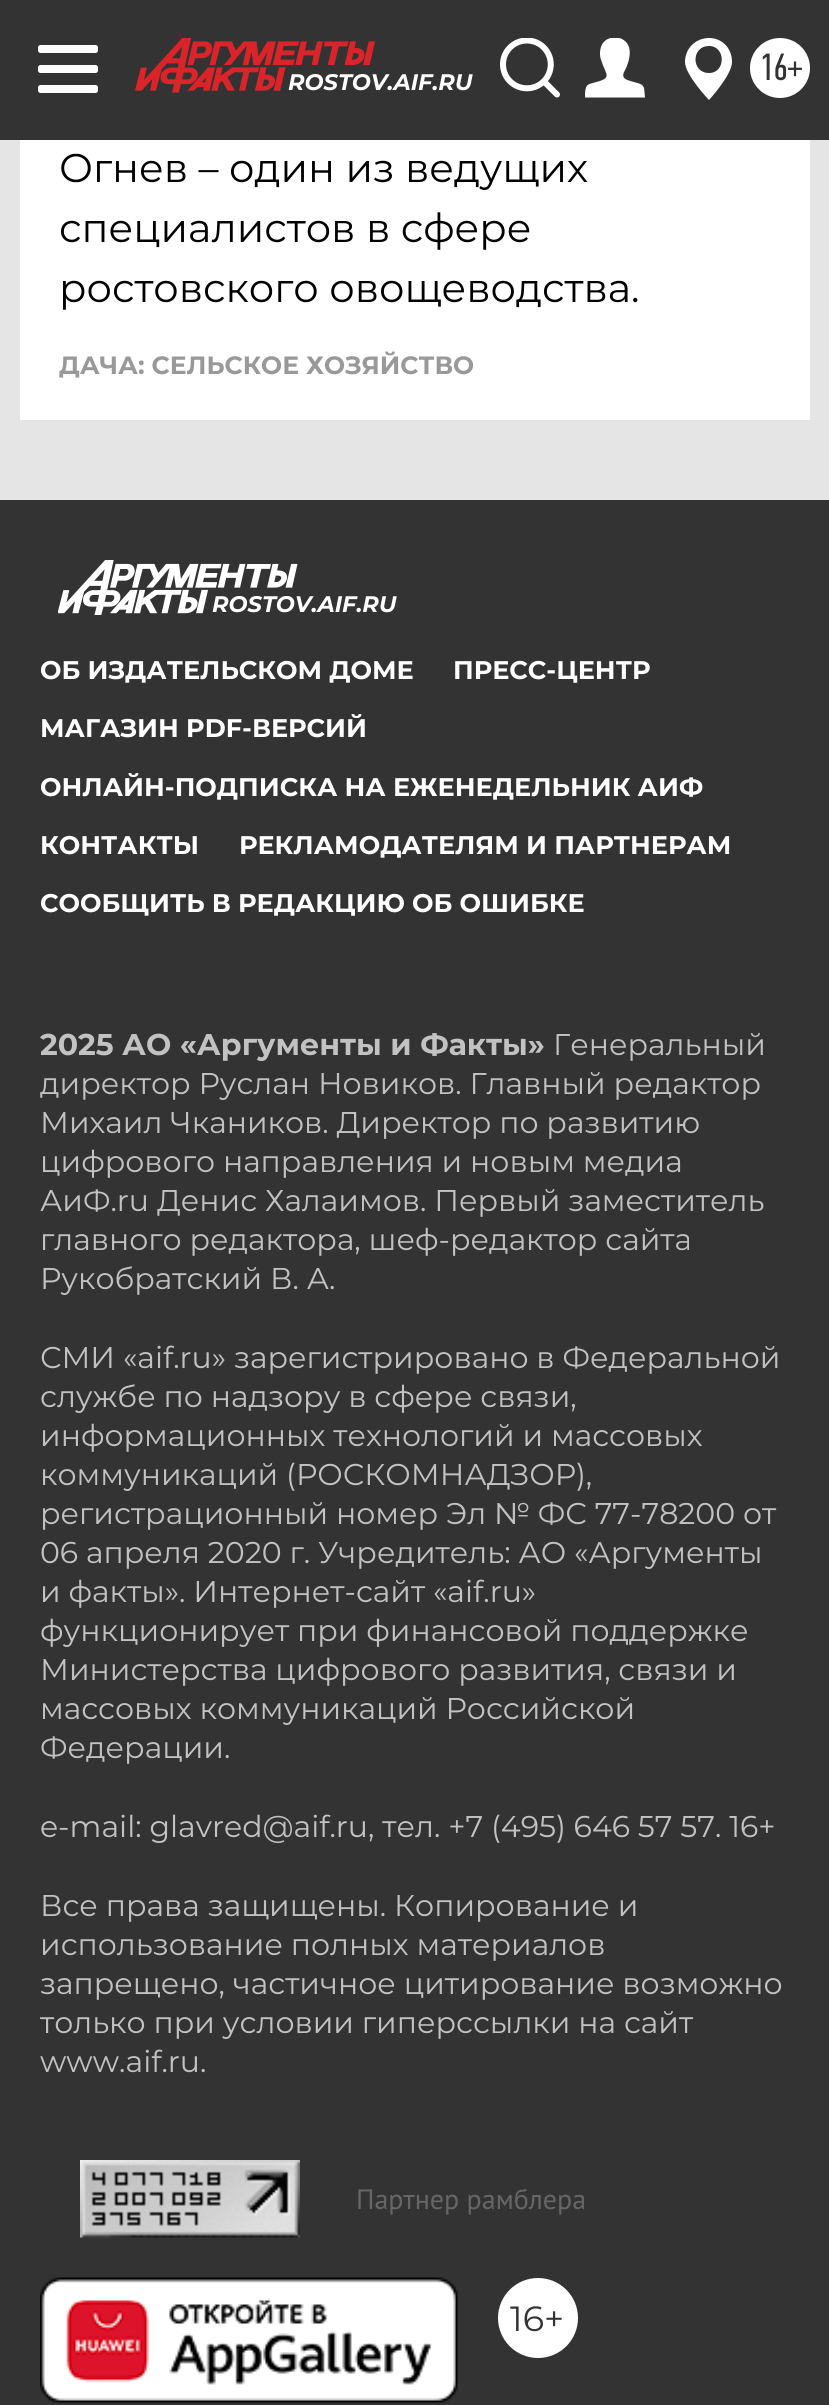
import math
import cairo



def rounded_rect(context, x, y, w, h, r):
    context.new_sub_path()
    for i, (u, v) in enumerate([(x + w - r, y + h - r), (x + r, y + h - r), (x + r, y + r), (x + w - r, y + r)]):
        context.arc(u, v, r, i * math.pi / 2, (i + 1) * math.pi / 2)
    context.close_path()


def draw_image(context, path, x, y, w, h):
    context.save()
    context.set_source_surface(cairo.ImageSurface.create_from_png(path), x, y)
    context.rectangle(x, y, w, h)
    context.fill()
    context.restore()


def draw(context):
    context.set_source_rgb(51 / 255, 51 / 255, 51 / 255)
    context.paint()
    context.set_source_rgb(229 / 255, 229 / 255, 229 / 255)
    context.rectangle(0, 140, 829, 360)
    context.fill()
    context.set_source_rgb(1, 1, 1)
    rounded_rect(context, 38, 45, 60, 8, 2.5)
    context.fill()
    rounded_rect(context, 38, 65, 60, 8, 2.5)
    context.fill()
    rounded_rect(context, 38, 85, 60, 8, 2.5)
    context.fill()
    draw_image(context, "images/1.png", 135, 38, 240, 55)
    draw_image(context, "images/2.png", 500, 38, 60, 60)
    draw_image(context, "images/3.png", 585, 38, 60, 60)
    context.new_path()
    context.move_to(709, 38)
    context.curve_to(696, 38, 685, 48, 685, 62)
    context.curve_to(685, 75, 709, 100, 709, 100)
    context.curve_to(709, 100, 732, 75, 732, 62)
    context.curve_to(732, 48, 722, 38, 709, 38)
    context.close_path()
    context.move_to(709, 73)
    context.curve_to(691, 73, 691, 46, 709, 46)
    context.curve_to(726, 46, 726, 73, 709, 73)
    context.close_path()
    context.fill()
    context.arc(780, 68, 30, 0, 2 * math.pi)
    context.fill()
    context.rectangle(20, 140, 790, 280)
    context.fill()
    draw_image(context, "images/4.png", 58, 560, 240, 55)
    draw_image(context, "images/5.png", 80, 2160, 220, 78)
    draw_image(context, "images/6.png", 40, 2277, 418, 126)
    context.arc(538, 2318, 40, 0, 2 * math.pi)
    context.fill()
    context.select_font_face("Montserrat", cairo.FontSlant.ITALIC, cairo.FontWeight.BOLD)
    context.set_font_size(22.5)
    context.move_to(288, 90)
    context.show_text("ROSTOV.AIF.RU")
    context.select_font_face("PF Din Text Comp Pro")
    context.set_font_size(38)
    context.set_source_rgb(51 / 255, 51 / 255, 51 / 255)
    context.move_to(759, 80)
    context.show_text("16+")
    context.select_font_face("Montserrat")
    context.set_font_size(40)
    context.set_source_rgb(0, 0, 0)
    context.move_to(59, 182)
    context.show_text("Огнев – один из ведущих")
    context.move_to(59, 242)
    context.show_text("специалистов в сфере")
    context.move_to(59, 302)
    context.show_text("ростовского овощеводства.")
    context.select_font_face("Montserrat", cairo.FontSlant.NORMAL, cairo.FontWeight.BOLD)
    context.set_font_size(25)
    context.set_source_rgb(153 / 255, 153 / 255, 153 / 255)
    context.move_to(59, 374)
    context.show_text("ДАЧА: СЕЛЬСКОЕ ХОЗЯЙСТВО")
    context.select_font_face("Montserrat", cairo.FontSlant.ITALIC, cairo.FontWeight.BOLD)
    context.set_font_size(22.5)
    context.set_source_rgb(1, 1, 1)
    context.move_to(212, 612)
    context.show_text("ROSTOV.AIF.RU")
    context.select_font_face("Montserrat", cairo.FontSlant.NORMAL, cairo.FontWeight.BOLD)
    context.set_font_size(25.5)
    context.move_to(40, 679)
    context.show_text("ОБ ИЗДАТЕЛЬСКОМ ДОМЕ")
    context.move_to(453, 679)
    context.show_text("ПРЕСС-ЦЕНТР")
    context.move_to(40, 737)
    context.show_text("МАГАЗИН PDF-ВЕРСИЙ")
    context.move_to(40, 796)
    context.show_text("ОНЛАЙН-ПОДПИСКА НА ЕЖЕНЕДЕЛЬНИК АИФ")
    context.move_to(40, 854)
    context.show_text("КОНТАКТЫ")
    context.move_to(239, 854)
    context.show_text("РЕКЛАМОДАТЕЛЯМ И ПАРТНЕРАМ")
    context.move_to(40, 912)
    context.show_text("СООБЩИТЬ В РЕДАКЦИЮ ОБ ОШИБКЕ")
    context.set_font_size(30)
    context.set_source_rgb(194 / 255, 194 / 255, 194 / 255)
    context.move_to(40, 1055)
    context.show_text("2025 АО «Аргументы и Факты»")
    context.select_font_face("Montserrat")
    context.move_to(553, 1055)
    context.show_text("Генеральный")
    context.move_to(40, 1094)
    context.show_text("директор Руслан Новиков. Главный редактор")
    context.move_to(40, 1133)
    context.show_text("Михаил Чкаников. Директор по развитию")
    context.move_to(40, 1172)
    context.show_text("цифрового направления и новым медиа")
    context.move_to(40, 1211)
    context.show_text("АиФ.ru Денис Халаимов. Первый заместитель")
    context.move_to(40, 1250)
    context.show_text("главного редактора, шеф-редактор сайта")
    context.move_to(40, 1289)
    context.show_text("Рукобратский В. А.")
    context.move_to(40, 1368)
    context.show_text("СМИ «aif.ru» зарегистрировано в Федеральной")
    context.move_to(40, 1407)
    context.show_text("службе по надзору в сфере связи,")
    context.move_to(40, 1446)
    context.show_text("информационных технологий и массовых")
    context.move_to(40, 1485)
    context.show_text("коммуникаций (РОСКОМНАДЗОР),")
    context.move_to(40, 1524)
    context.show_text("регистрационный номер Эл № ФС 77-78200 от")
    context.move_to(40, 1563)
    context.show_text("06 апреля 2020 г. Учредитель: АО «Аргументы")
    context.move_to(40, 1602)
    context.show_text("и факты». Интернет-сайт «aif.ru»")
    context.move_to(40, 1641)
    context.show_text("функционирует при финансовой поддержке")
    context.move_to(40, 1680)
    context.show_text("Министерства цифрового развития, связи и")
    context.move_to(40, 1719)
    context.show_text("массовых коммуникаций Российской")
    context.move_to(40, 1758)
    context.show_text("Федерации.")
    context.move_to(40, 1837)
    context.show_text("e-mail: glavred@aif.ru, тел. +7 (495) 646 57 57. 16+")
    context.move_to(40, 1916)
    context.show_text("Все права защищены. Копирование и")
    context.move_to(40, 1955)
    context.show_text("использование полных материалов")
    context.move_to(40, 1994)
    context.show_text("запрещено, частичное цитирование возможно")
    context.move_to(40, 2033)
    context.show_text("только при условии гиперссылки на сайт")
    context.move_to(40, 2072)
    context.show_text("www.aif.ru.")
    context.select_font_face("PT Sans")
    context.set_font_size(28)
    context.set_source_rgb(102 / 255, 102 / 255, 102 / 255)
    context.move_to(356, 2209)
    context.show_text("Партнер рамблера")
    context.select_font_face("Montserrat")
    context.set_font_size(35)
    context.set_source_rgb(51 / 255, 51 / 255, 51 / 255)
    context.move_to(510, 2331)
    context.show_text("16+")


surface = cairo.ImageSurface(cairo.Format.RGB24, 829, 2405)
context = cairo.Context(surface)
options = cairo.FontOptions()
options.set_hint_metrics(cairo.HintMetrics.OFF)
options.set_hint_style(cairo.HintStyle.NONE)
context.set_font_options(options)
context.set_miter_limit(4)
draw(context)
surface.write_to_png("out.png")
